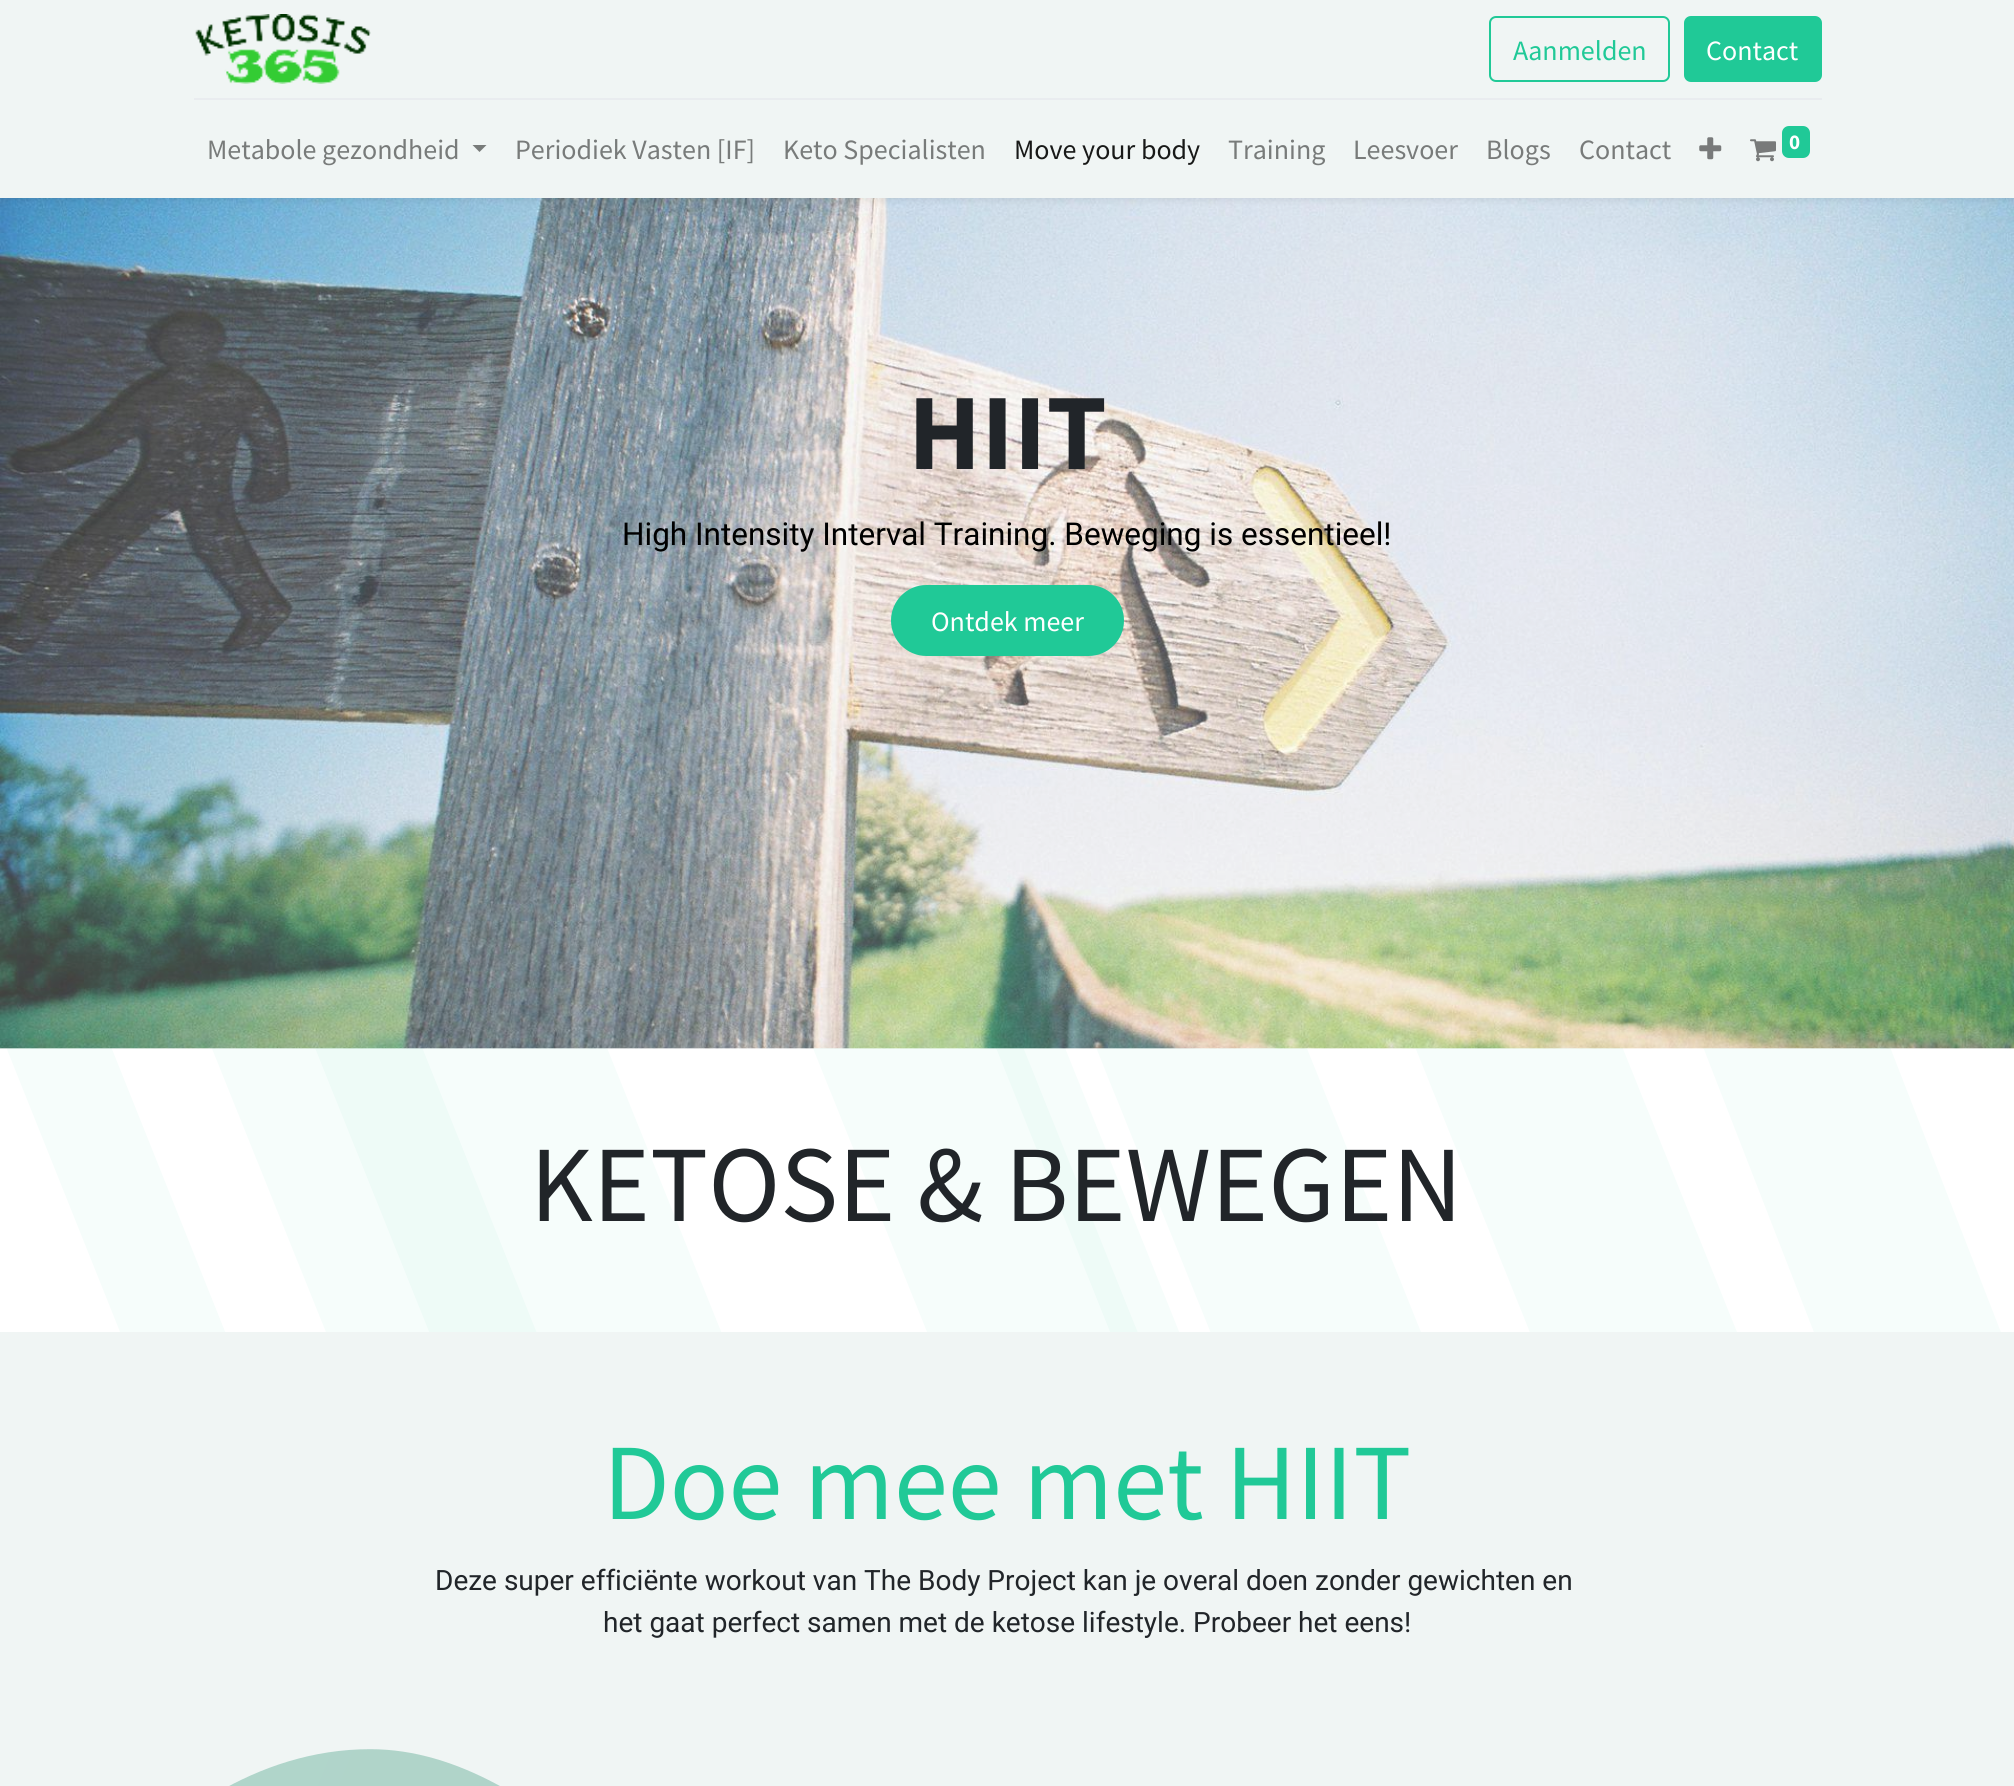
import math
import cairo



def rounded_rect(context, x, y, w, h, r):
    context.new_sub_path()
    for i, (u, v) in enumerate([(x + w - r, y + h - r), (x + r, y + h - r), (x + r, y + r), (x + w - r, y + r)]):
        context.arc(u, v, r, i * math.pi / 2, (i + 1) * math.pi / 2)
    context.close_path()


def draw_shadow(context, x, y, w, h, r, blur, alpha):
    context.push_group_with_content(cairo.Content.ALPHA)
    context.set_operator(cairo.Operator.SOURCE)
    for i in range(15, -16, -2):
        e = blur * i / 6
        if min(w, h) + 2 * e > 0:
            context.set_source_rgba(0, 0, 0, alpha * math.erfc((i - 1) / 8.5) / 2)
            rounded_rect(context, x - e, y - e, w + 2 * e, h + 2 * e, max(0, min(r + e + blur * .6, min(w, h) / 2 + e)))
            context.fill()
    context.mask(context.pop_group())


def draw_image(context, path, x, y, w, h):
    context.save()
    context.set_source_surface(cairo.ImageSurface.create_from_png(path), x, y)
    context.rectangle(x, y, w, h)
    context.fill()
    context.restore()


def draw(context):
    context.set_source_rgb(1, 1, 1)
    context.paint()
    draw_image(context, "images/4.png", 0, 198, 2014, 851)
    context.set_source_rgb(0, 0, 0)
    draw_shadow(context, 0, 4, 2014, 197, 0, 3.5, 0.07)
    context.set_source_rgb(240 / 255, 245 / 255, 244 / 255)
    context.rectangle(0, 0, 2014, 198)
    context.fill()
    draw_image(context, "images/1.png", 195, 14, 176, 70)
    rounded_rect(context, 1490, 17, 179, 64, 6)
    context.set_source_rgb(32 / 255, 201 / 255, 151 / 255)
    context.stroke()
    rounded_rect(context, 1685, 17, 136, 64, 6)
    context.fill_preserve()
    context.stroke()
    context.set_source_rgb(233 / 255, 236 / 255, 239 / 255)
    context.rectangle(194, 98, 1628, 2)
    context.fill()
    context.set_source_rgb(120 / 255, 123 / 255, 122 / 255)
    context.new_path()
    context.move_to(472.5, 145)
    context.line_to(486.5, 145)
    context.line_to(479.5, 152)
    context.close_path()
    context.fill()
    draw_image(context, "images/2.png", 1699, 137, 23, 23)
    draw_image(context, "images/3.png", 1750, 139, 26, 23)
    context.set_source_rgb(32 / 255, 201 / 255, 151 / 255)
    rounded_rect(context, 1782, 126, 28, 32, 7)
    context.fill()
    rounded_rect(context, 892, 586, 231, 69, 34.5)
    context.fill_preserve()
    context.stroke()
    draw_image(context, "images/5.png", 7, 1048, 1994, 284)
    context.set_source_rgb(240 / 255, 245 / 255, 244 / 255)
    context.rectangle(0, 1332, 2014, 454)
    context.fill()
    draw_image(context, "images/6.png", 229, 1749, 271, 37)
    context.select_font_face("Source Sans Pro")
    context.set_font_size(28)
    context.set_source_rgb(32 / 255, 201 / 255, 151 / 255)
    context.move_to(1513, 60)
    context.show_text("Aanmelden")
    context.set_source_rgb(1, 1, 1)
    context.move_to(1706, 60)
    context.show_text("Contact")
    context.set_source_rgb(120 / 255, 123 / 255, 122 / 255)
    context.move_to(207, 159)
    context.show_text("Metabole gezondheid")
    context.move_to(515, 159)
    context.show_text("Periodiek Vasten [IF]")
    context.move_to(783, 159)
    context.show_text("Keto Specialisten")
    context.set_source_rgb(24 / 255, 25 / 255, 24 / 255)
    context.move_to(1014, 159)
    context.show_text("Move your body")
    context.set_source_rgb(120 / 255, 123 / 255, 122 / 255)
    context.move_to(1228, 159)
    context.show_text("Training")
    context.move_to(1353, 159)
    context.show_text("Leesvoer")
    context.move_to(1486, 159)
    context.show_text("Blogs")
    context.move_to(1579, 159)
    context.show_text("Contact")
    context.select_font_face("Source Sans Pro", cairo.FontSlant.NORMAL, cairo.FontWeight.BOLD)
    context.set_font_size(21)
    context.set_source_rgb(1, 1, 1)
    context.move_to(1789, 149)
    context.show_text("0")
    context.set_font_size(108.5)
    context.set_source_rgb(33 / 255, 37 / 255, 41 / 255)
    context.move_to(908, 469)
    context.show_text("HIIT")
    context.select_font_face("Roboto")
    context.set_font_size(31.5)
    context.set_source_rgb(0, 0, 0)
    context.move_to(622, 545)
    context.show_text("High Intensity Interval Training. Beweging is essentieel!")
    context.select_font_face("Source Sans Pro")
    context.set_font_size(28)
    context.set_source_rgb(1, 1, 1)
    context.move_to(931, 631)
    context.show_text("Ontdek meer")
    context.set_font_size(108.5)
    context.set_source_rgb(33 / 255, 37 / 255, 41 / 255)
    context.move_to(530, 1221)
    context.show_text("KETOSE & BEWEGEN")
    context.set_source_rgb(32 / 255, 201 / 255, 151 / 255)
    context.move_to(603, 1519)
    context.show_text("Doe mee met HIIT")
    context.select_font_face("Roboto")
    context.set_font_size(28)
    context.set_source_rgb(33 / 255, 37 / 255, 41 / 255)
    context.move_to(435, 1590)
    context.show_text("Deze super efficiënte workout van The Body Project kan je overal doen zonder gewichten en")
    context.move_to(603, 1632)
    context.show_text("het gaat perfect samen met de ketose lifestyle. Probeer het eens!")


surface = cairo.ImageSurface(cairo.Format.RGB24, 2014, 1786)
context = cairo.Context(surface)
options = cairo.FontOptions()
options.set_hint_metrics(cairo.HintMetrics.OFF)
options.set_hint_style(cairo.HintStyle.NONE)
context.set_font_options(options)
context.set_miter_limit(4)
draw(context)
surface.write_to_png("out.png")
